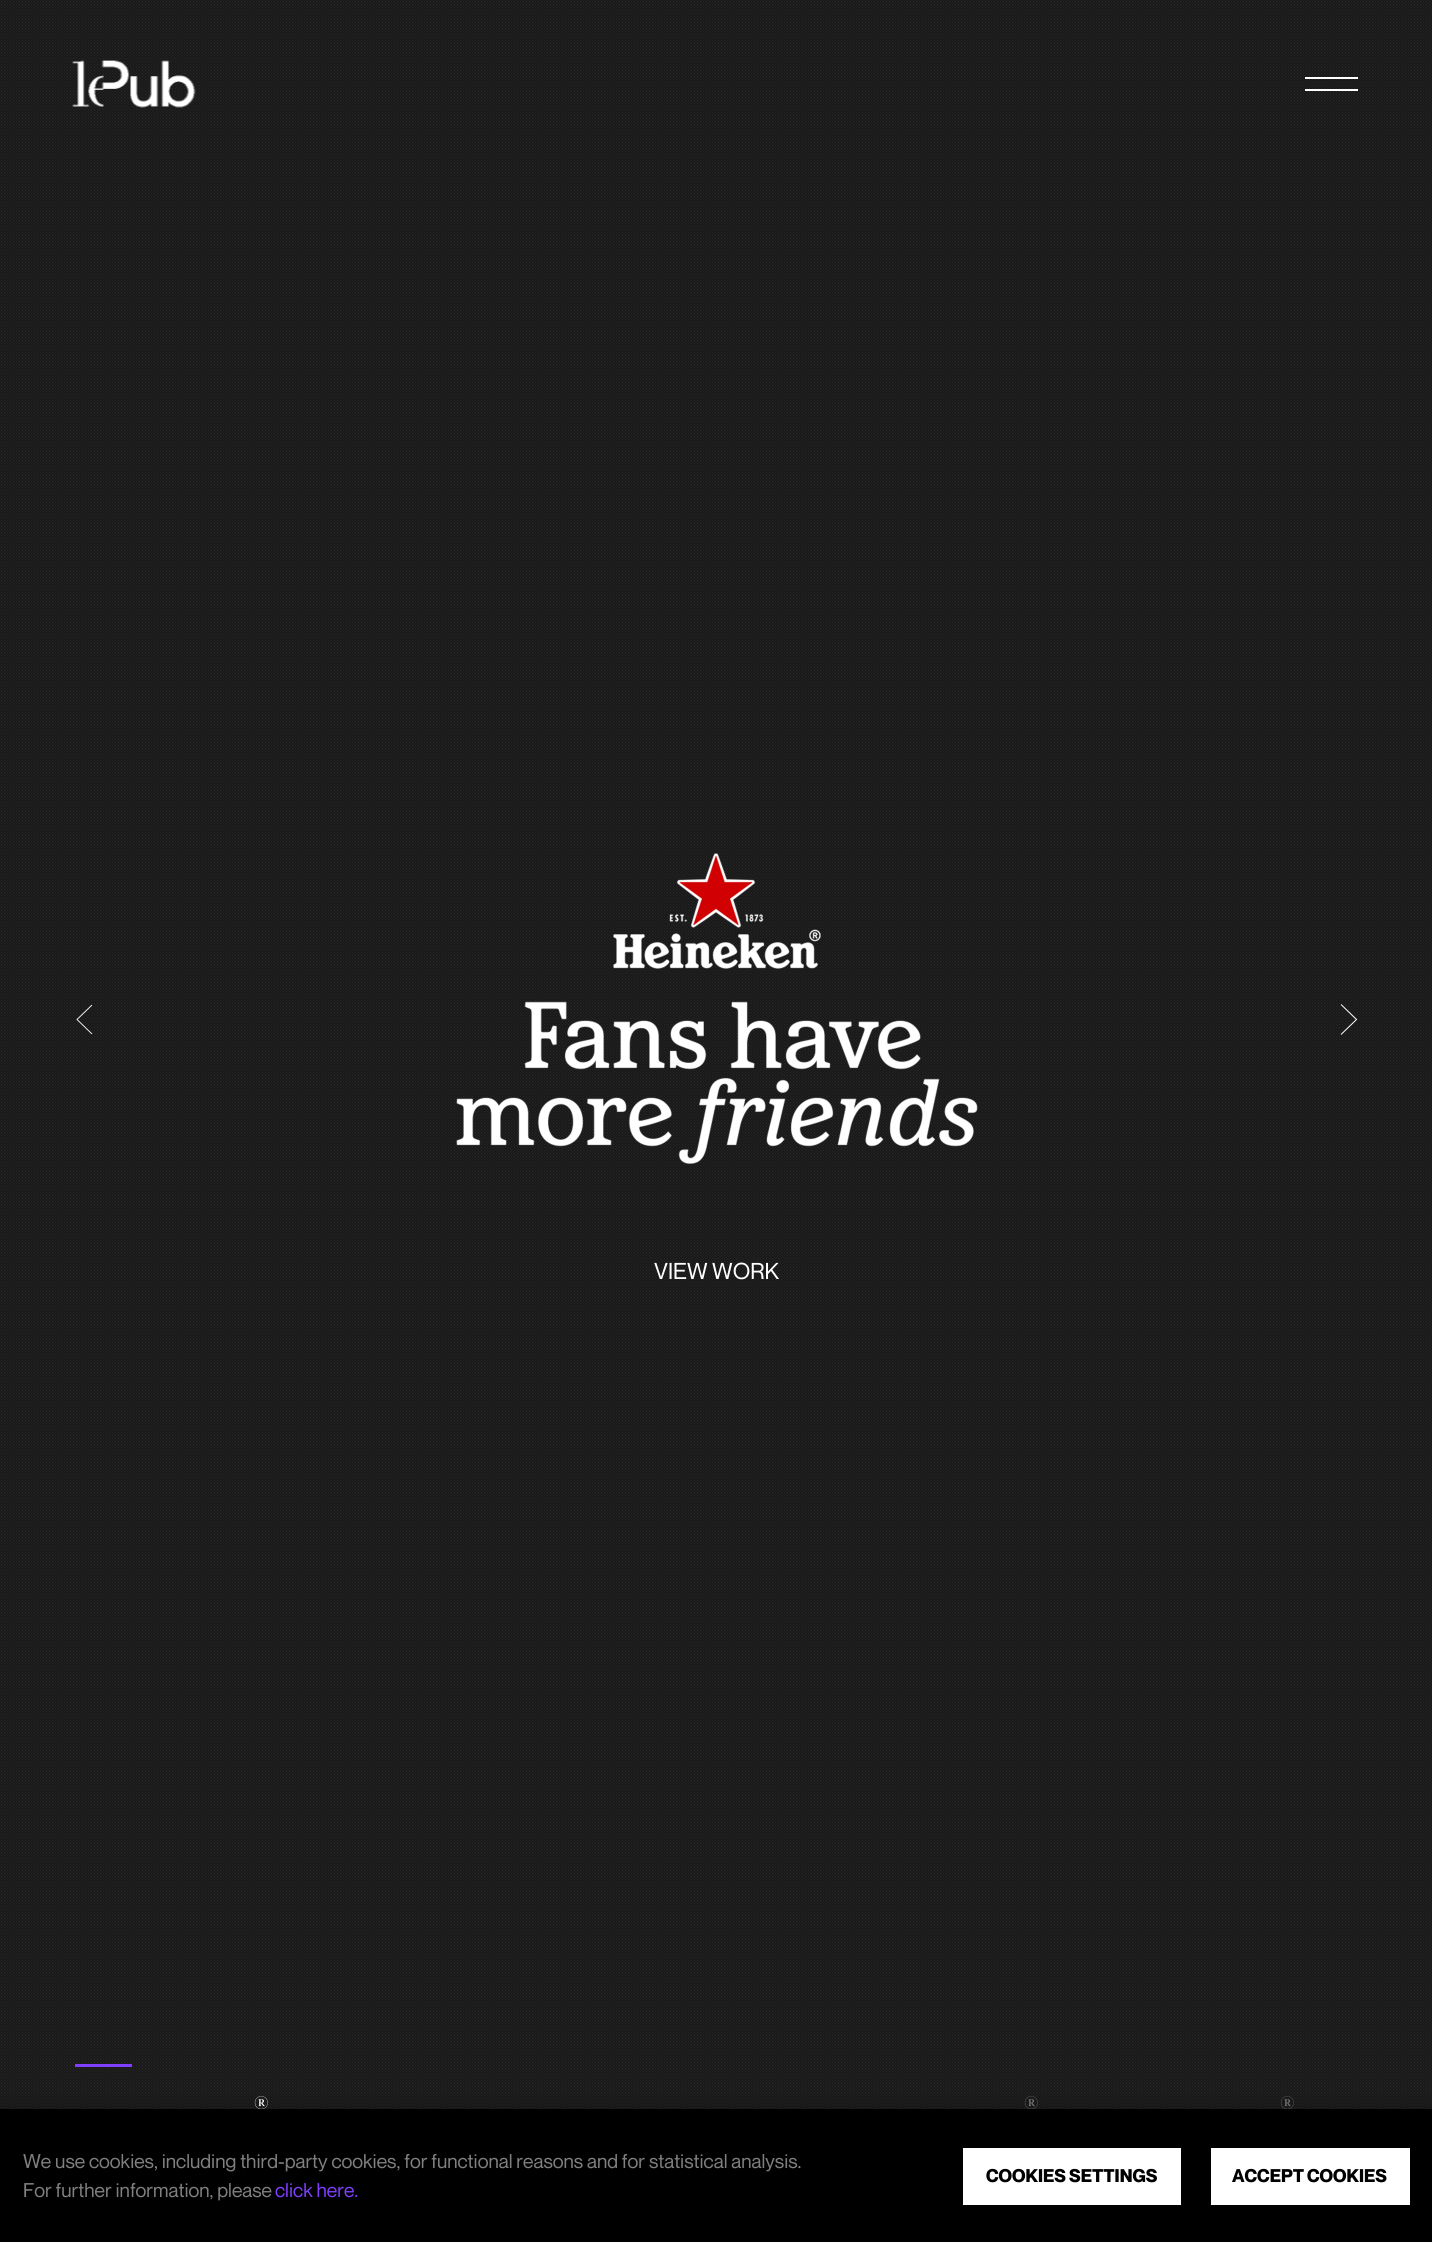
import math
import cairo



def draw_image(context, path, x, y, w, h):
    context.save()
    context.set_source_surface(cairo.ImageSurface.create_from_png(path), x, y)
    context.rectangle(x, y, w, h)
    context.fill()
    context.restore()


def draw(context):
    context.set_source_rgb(18 / 255, 18 / 255, 18 / 255)
    context.paint()
    draw_image(context, "images/2.png", 0, 0, 1432, 2109)
    draw_image(context, "images/1.png", 72, 60, 124, 48)
    context.set_source_rgb(1, 1, 1)
    context.rectangle(1305, 77, 53, 2)
    context.fill()
    context.rectangle(1305, 89, 53, 2)
    context.fill()
    context.new_path()
    context.move_to(92, 1005)
    context.line_to(77, 1019.5)
    context.line_to(92, 1034)
    context.set_line_width(0.9)
    context.stroke()
    context.new_path()
    context.move_to(1341, 1004.5)
    context.line_to(1356.5, 1019.5)
    context.line_to(1341, 1034.5)
    context.set_line_width(1)
    context.stroke()
    draw_image(context, "images/3.png", 456, 853, 522, 311)
    gradient = cairo.LinearGradient(716, 2066, 716, 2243)
    gradient.add_color_stop_rgba(0, 0, 0, 0, 0)
    gradient.add_color_stop_rgba(1, 0, 0, 0, 0.4)
    context.set_source(gradient)
    context.rectangle(0, 2095, 1432, 14)
    context.fill()
    context.set_source_rgb(128 / 255, 62 / 255, 1)
    context.rectangle(75, 2064, 57, 3)
    context.fill()
    context.select_font_face("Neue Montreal")
    context.set_font_size(22.5)
    context.set_source_rgb(1, 1, 1)
    context.move_to(654, 1279)
    context.show_text("VIEW WORK")
    context.select_font_face("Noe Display")
    context.set_font_size(18)
    context.move_to(254, 2109)
    context.show_text("®")
    context.set_source_rgb(118 / 255, 118 / 255, 118 / 255)
    context.move_to(1024, 2109)
    context.show_text("®")
    context.move_to(1280, 2109)
    context.show_text("®")
    context.set_source_rgb(0, 0, 0)
    context.rectangle(0, 2109, 1432, 133)
    context.fill()
    context.select_font_face("Neue Montreal")
    context.set_font_size(19.5)
    context.set_source_rgb(128 / 255, 128 / 255, 128 / 255)
    context.move_to(23, 2168)
    context.show_text("We use cookies, including third-party cookies, for functional reasons and for statistical analysis.")
    context.move_to(23, 2197)
    context.show_text("For further information, please")
    context.set_source_rgb(128 / 255, 62 / 255, 1)
    context.move_to(275, 2197)
    context.show_text("click here.")
    context.set_source_rgb(1, 1, 1)
    context.rectangle(963, 2148, 218, 57)
    context.fill()
    context.select_font_face("Neue Montreal", cairo.FontSlant.NORMAL, cairo.FontWeight.BOLD)
    context.set_font_size(18)
    context.set_source_rgb(0, 0, 0)
    context.move_to(986, 2182)
    context.show_text("COOKIES SETTINGS")
    context.set_source_rgb(1, 1, 1)
    context.rectangle(1211, 2148, 199, 57)
    context.fill()
    context.set_source_rgb(0, 0, 0)
    context.move_to(1232, 2182)
    context.show_text("ACCEPT COOKIES")


surface = cairo.ImageSurface(cairo.Format.RGB24, 1432, 2242)
context = cairo.Context(surface)
options = cairo.FontOptions()
options.set_hint_metrics(cairo.HintMetrics.OFF)
options.set_hint_style(cairo.HintStyle.NONE)
context.set_font_options(options)
context.set_miter_limit(4)
draw(context)
surface.write_to_png("out.png")
